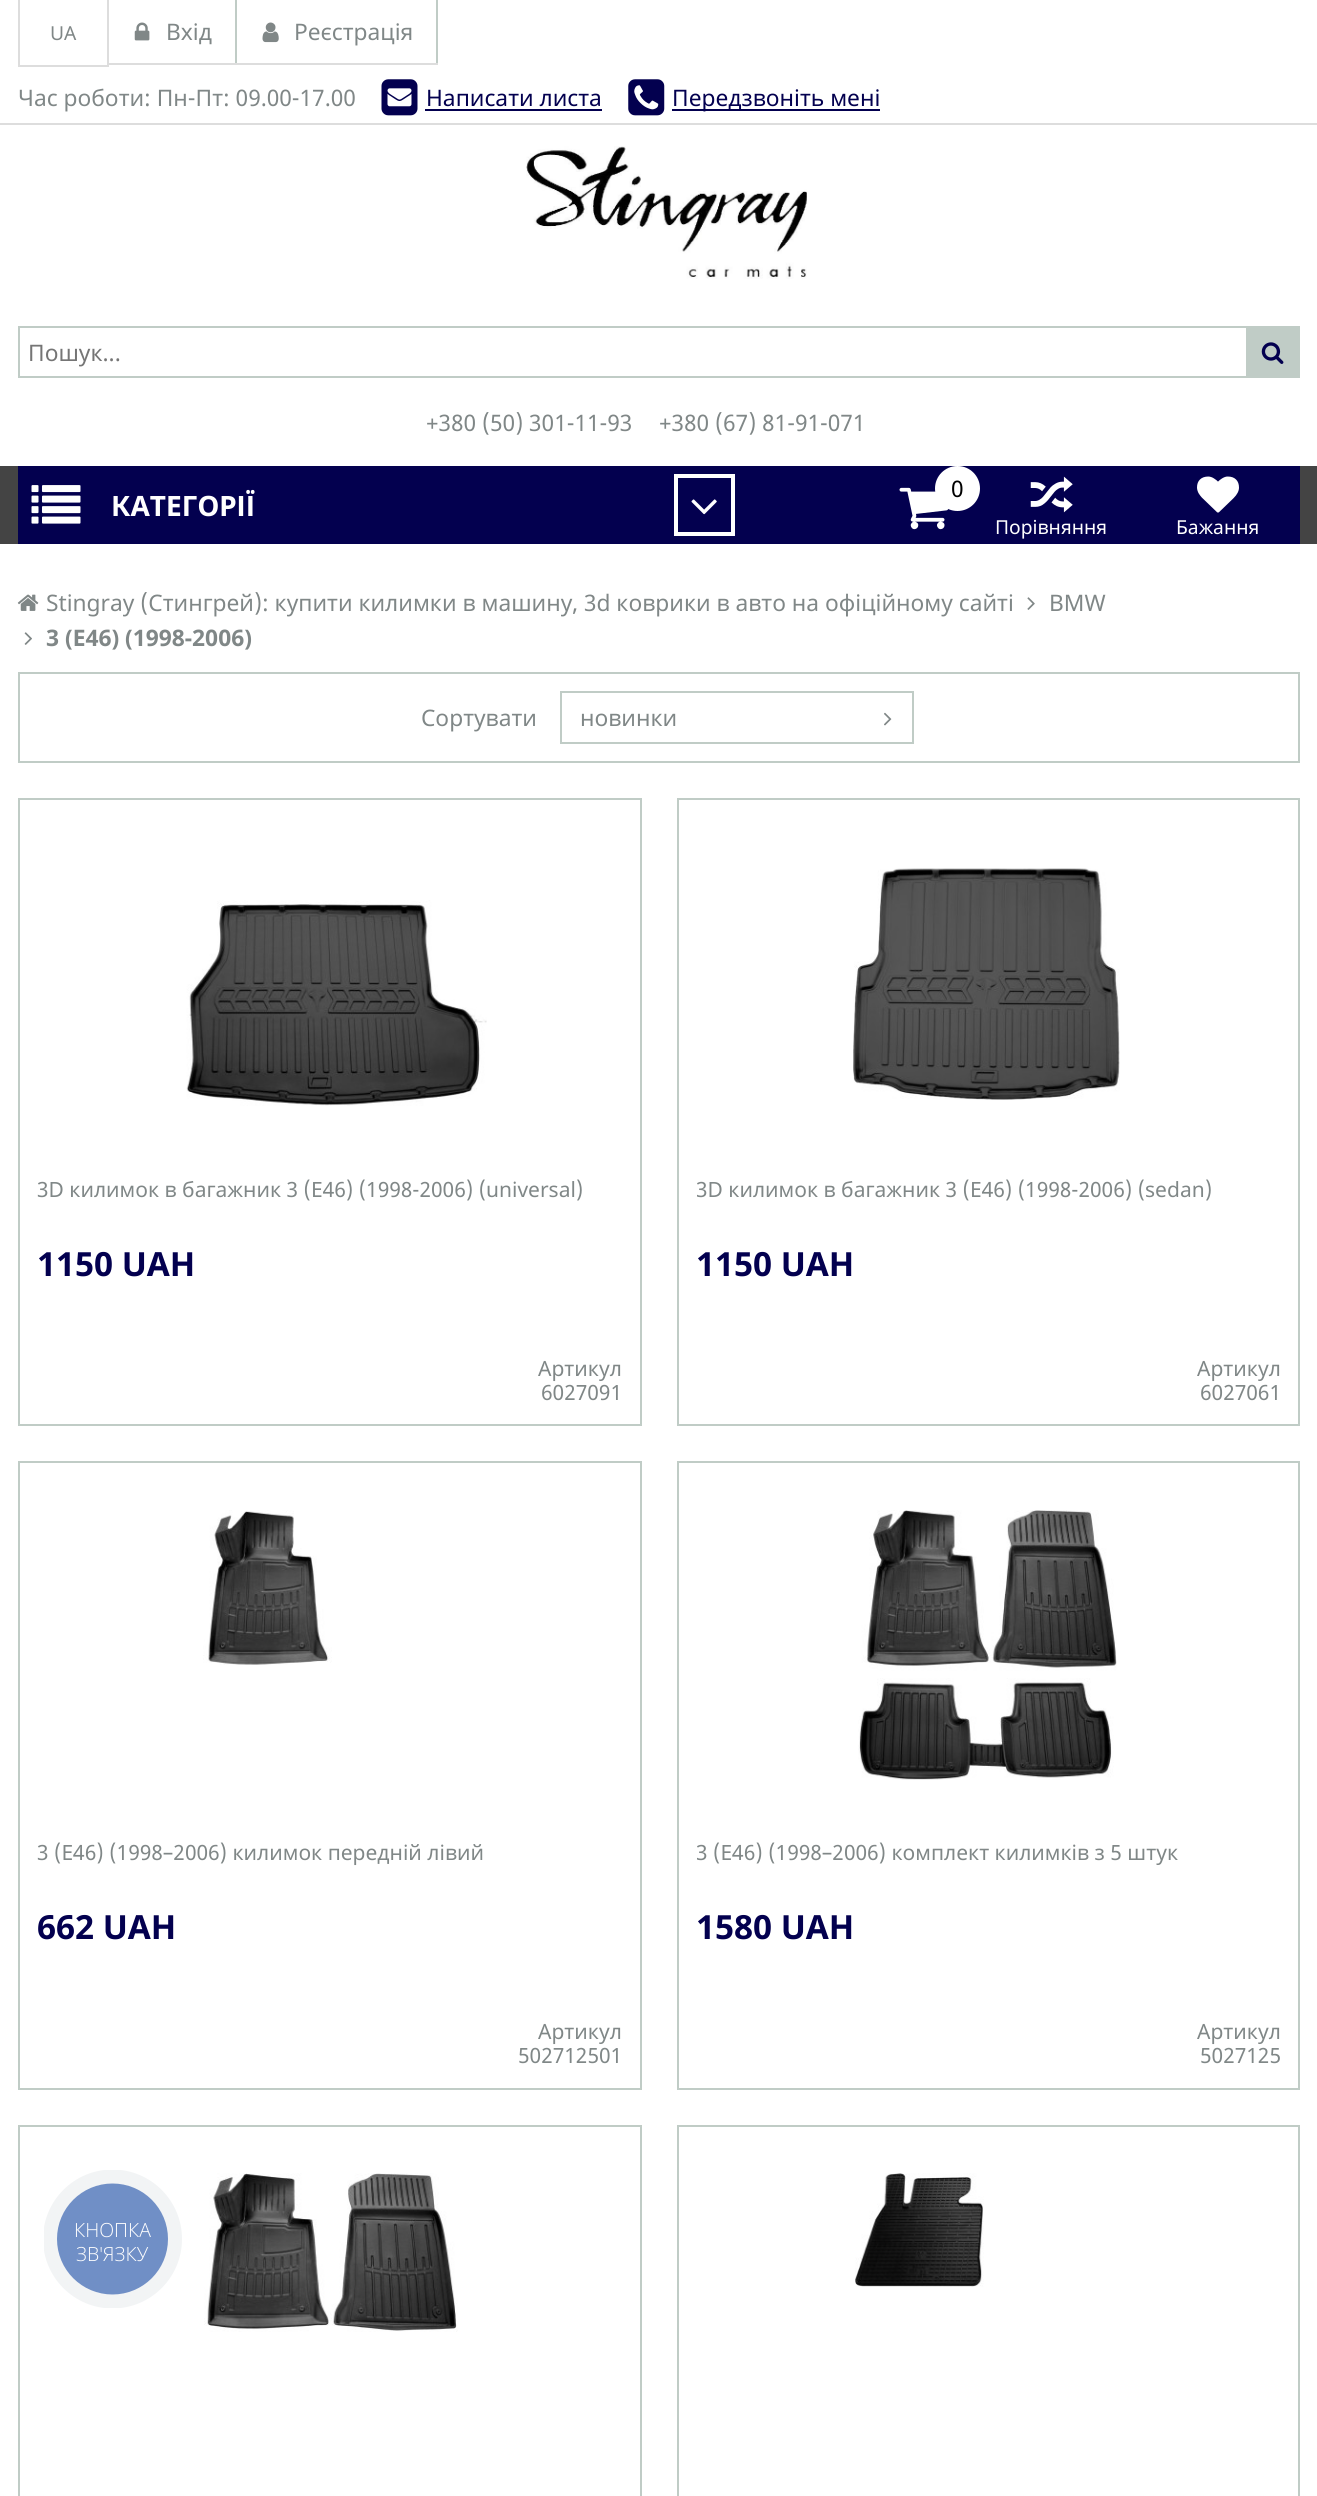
import math
import cairo



def draw_image(context, path, x, y, w, h):
    context.save()
    context.set_source_surface(cairo.ImageSurface.create_from_png(path), x, y)
    context.rectangle(x, y, w, h)
    context.fill()
    context.restore()


def draw(context):
    context.set_source_rgb(1, 1, 1)
    context.paint()
    context.set_source_rgb(221 / 255, 221 / 255, 221 / 255)
    context.rectangle(0, 123, 1317, 2)
    context.fill()
    context.rectangle(18, 65, 91, 2)
    context.fill()
    context.rectangle(107, 0, 2, 65)
    context.fill()
    context.rectangle(18, 0, 2, 65)
    context.fill()
    context.rectangle(109, 63, 329, 2)
    context.fill()
    context.set_source_rgb(192 / 255, 204 / 255, 198 / 255)
    context.rectangle(235, 0, 2, 63)
    context.fill()
    draw_image(context, "images/1.png", 134, 22, 16, 19)
    context.rectangle(436, 0, 2, 63)
    context.fill()
    draw_image(context, "images/2.png", 262, 22, 17, 21)
    draw_image(context, "images/3.png", 381, 79, 37, 37)
    context.set_source_rgb(3 / 255, 0, 79 / 255)
    context.rectangle(425, 109, 177, 2)
    context.fill()
    draw_image(context, "images/4.png", 628, 79, 37, 37)
    context.rectangle(672, 109, 208, 2)
    context.fill()
    draw_image(context, "images/5.png", 526, 146, 281, 133)
    context.rectangle(19, 327, 1280, 50)
    context.set_source_rgb(192 / 255, 204 / 255, 198 / 255)
    context.stroke()
    context.rectangle(1246, 328, 52, 48)
    context.fill()
    draw_image(context, "images/6.png", 1261, 342, 23, 22)
    context.set_source_rgb(68 / 255, 68 / 255, 68 / 255)
    context.rectangle(0, 466, 1317, 78)
    context.fill()
    context.set_source_rgb(3 / 255, 0, 79 / 255)
    context.rectangle(18, 466, 1282, 78)
    context.fill()
    draw_image(context, "images/7.png", 31, 485, 50, 39)
    context.rectangle(676, 476, 57, 58)
    context.set_source_rgb(1, 1, 1)
    context.set_line_width(4)
    context.stroke()
    draw_image(context, "images/8.png", 691, 499, 26, 16)
    draw_image(context, "images/9.png", 899, 487, 50, 43)
    context.arc(957.5, 488.5, 22.5, 0, 2 * math.pi)
    context.fill()
    draw_image(context, "images/10.png", 1030, 476, 43, 37)
    draw_image(context, "images/11.png", 1197, 476, 42, 37)
    draw_image(context, "images/12.png", 17, 594, 22, 17)
    draw_image(context, "images/13.png", 1027, 597, 8, 13)
    draw_image(context, "images/14.png", 24, 632, 8, 13)
    context.rectangle(19, 673, 1280, 89)
    context.set_source_rgb(192 / 255, 204 / 255, 198 / 255)
    context.set_line_width(2)
    context.stroke()
    context.rectangle(561, 692, 352, 51)
    context.stroke()
    draw_image(context, "images/15.png", 884, 712, 8, 14)
    context.rectangle(19, 799, 622, 626)
    context.stroke()
    draw_image(context, "images/16.png", 186, 900, 301, 206)
    context.rectangle(678, 799, 621, 626)
    context.stroke()
    draw_image(context, "images/17.png", 853, 868, 267, 232)
    context.rectangle(19, 1462, 622, 627)
    context.stroke()
    draw_image(context, "images/18.png", 203, 1510, 129, 155)
    context.rectangle(678, 1462, 621, 627)
    context.stroke()
    draw_image(context, "images/19.png", 858, 1510, 259, 270)
    context.rectangle(19, 2126, 622, 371)
    context.stroke()
    draw_image(context, "images/20.png", 204, 2173, 254, 159)
    context.rectangle(678, 2126, 621, 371)
    context.stroke()
    draw_image(context, "images/21.png", 855, 2173, 129, 114)
    context.save()
    context.rectangle(44, 2170, 138, 138)
    context.clip()
    context.set_source_rgb(242 / 255, 244 / 255, 245 / 255)
    context.arc(112.5, 2239, 69.5, 0, 2 * math.pi)
    context.fill()
    context.restore()
    context.set_source_rgb(112 / 255, 143 / 255, 198 / 255)
    context.arc(112.5, 2239, 55.5, 0, 2 * math.pi)
    context.fill()
    context.select_font_face("Noto Sans")
    context.set_font_size(19.25)
    context.set_source_rgb(128 / 255, 135 / 255, 135 / 255)
    context.move_to(50, 40)
    context.show_text("UA")
    context.set_font_size(22.75)
    context.move_to(166, 40)
    context.show_text("Вхід")
    context.move_to(294, 40)
    context.show_text("Реєстрація")
    context.move_to(18, 106)
    context.show_text("Час роботи: Пн-Пт: 09.00-17.00")
    context.set_source_rgb(3 / 255, 0, 79 / 255)
    context.move_to(426, 106)
    context.show_text("Написати листа")
    context.move_to(672, 106)
    context.show_text("Передзвоніть мені")
    context.set_source_rgb(117 / 255, 117 / 255, 117 / 255)
    context.move_to(28, 361)
    context.show_text("Пошук...")
    context.set_source_rgb(128 / 255, 135 / 255, 135 / 255)
    context.move_to(426, 431)
    context.show_text("+380 (50) 301-11-93")
    context.move_to(659, 431)
    context.show_text("+380 (67) 81-91-071")
    context.select_font_face("Noto Sans", cairo.FontSlant.NORMAL, cairo.FontWeight.BOLD)
    context.set_font_size(28)
    context.set_source_rgb(1, 1, 1)
    context.move_to(111, 516)
    context.show_text("КАТЕГОРІЇ")
    context.select_font_face("Noto Sans")
    context.set_font_size(22.75)
    context.set_source_rgb(0, 0, 0)
    context.move_to(951, 497)
    context.show_text("0")
    context.set_font_size(19.25)
    context.set_source_rgb(1, 1, 1)
    context.move_to(995, 534)
    context.show_text("Порівняння")
    context.move_to(1176, 534)
    context.show_text("Бажання")
    context.set_font_size(22.75)
    context.set_source_rgb(128 / 255, 135 / 255, 135 / 255)
    context.move_to(46, 611)
    context.show_text("Stingray (Стингрей): купити килимки в машину, 3d коврики в авто на офіційному сайті")
    context.move_to(1049, 611)
    context.show_text("BMW")
    context.select_font_face("Noto Sans", cairo.FontSlant.NORMAL, cairo.FontWeight.BOLD)
    context.move_to(46, 646)
    context.show_text("3 (Е46) (1998-2006)")
    context.select_font_face("Noto Sans")
    context.move_to(421, 726)
    context.show_text("Сортувати")
    context.move_to(580, 726)
    context.show_text("новинки")
    context.set_font_size(21)
    context.move_to(37, 1197)
    context.show_text("3D килимок в багажник 3 (Е46) (1998-2006) (universal)")
    context.select_font_face("Noto Sans", cairo.FontSlant.NORMAL, cairo.FontWeight.BOLD)
    context.set_font_size(33.25)
    context.set_source_rgb(3 / 255, 0, 79 / 255)
    context.move_to(37, 1276)
    context.show_text("1150 UAH")
    context.select_font_face("Noto Sans")
    context.set_font_size(21)
    context.set_source_rgb(128 / 255, 135 / 255, 135 / 255)
    context.move_to(538, 1376)
    context.show_text("Артикул")
    context.move_to(541, 1400)
    context.show_text("6027091")
    context.save()
    context.rectangle(697, 1176, 584, 56)
    context.clip()
    context.move_to(696, 1197)
    context.show_text("3D килимок в багажник 3 (Е46) (1998-2006) (sedan)")
    context.restore()
    context.select_font_face("Noto Sans", cairo.FontSlant.NORMAL, cairo.FontWeight.BOLD)
    context.set_font_size(33.25)
    context.set_source_rgb(3 / 255, 0, 79 / 255)
    context.move_to(696, 1276)
    context.show_text("1150 UAH")
    context.select_font_face("Noto Sans")
    context.set_font_size(21)
    context.set_source_rgb(128 / 255, 135 / 255, 135 / 255)
    context.move_to(1197, 1376)
    context.show_text("Артикул")
    context.move_to(1200, 1400)
    context.show_text("6027061")
    context.move_to(37, 1860)
    context.show_text("3 (Е46) (1998–2006) килимок передній лівий")
    context.select_font_face("Noto Sans", cairo.FontSlant.NORMAL, cairo.FontWeight.BOLD)
    context.set_font_size(33.25)
    context.set_source_rgb(3 / 255, 0, 79 / 255)
    context.move_to(37, 1939)
    context.show_text("662 UAH")
    context.select_font_face("Noto Sans")
    context.set_font_size(21)
    context.set_source_rgb(128 / 255, 135 / 255, 135 / 255)
    context.move_to(538, 2039)
    context.show_text("Артикул")
    context.move_to(518, 2063)
    context.show_text("502712501")
    context.save()
    context.rectangle(697, 1839, 584, 56)
    context.clip()
    context.move_to(696, 1860)
    context.show_text("3 (Е46) (1998–2006) комплект килимків з 5 штук")
    context.restore()
    context.select_font_face("Noto Sans", cairo.FontSlant.NORMAL, cairo.FontWeight.BOLD)
    context.set_font_size(33.25)
    context.set_source_rgb(3 / 255, 0, 79 / 255)
    context.move_to(696, 1939)
    context.show_text("1580 UAH")
    context.select_font_face("Noto Sans")
    context.set_font_size(21)
    context.set_source_rgb(128 / 255, 135 / 255, 135 / 255)
    context.move_to(1197, 2039)
    context.show_text("Артикул")
    context.move_to(1200, 2063)
    context.show_text("5027125")
    context.select_font_face("Open Sans Light")
    context.set_font_size(19.5)
    context.set_source_rgb(1, 1, 1)
    context.move_to(74, 2237)
    context.show_text("КНОПКА")
    context.move_to(76, 2261)
    context.show_text("ЗВ'ЯЗКУ")


surface = cairo.ImageSurface(cairo.Format.RGB24, 1317, 2496)
context = cairo.Context(surface)
options = cairo.FontOptions()
options.set_hint_metrics(cairo.HintMetrics.OFF)
options.set_hint_style(cairo.HintStyle.NONE)
context.set_font_options(options)
context.set_miter_limit(4)
draw(context)
surface.write_to_png("out.png")
